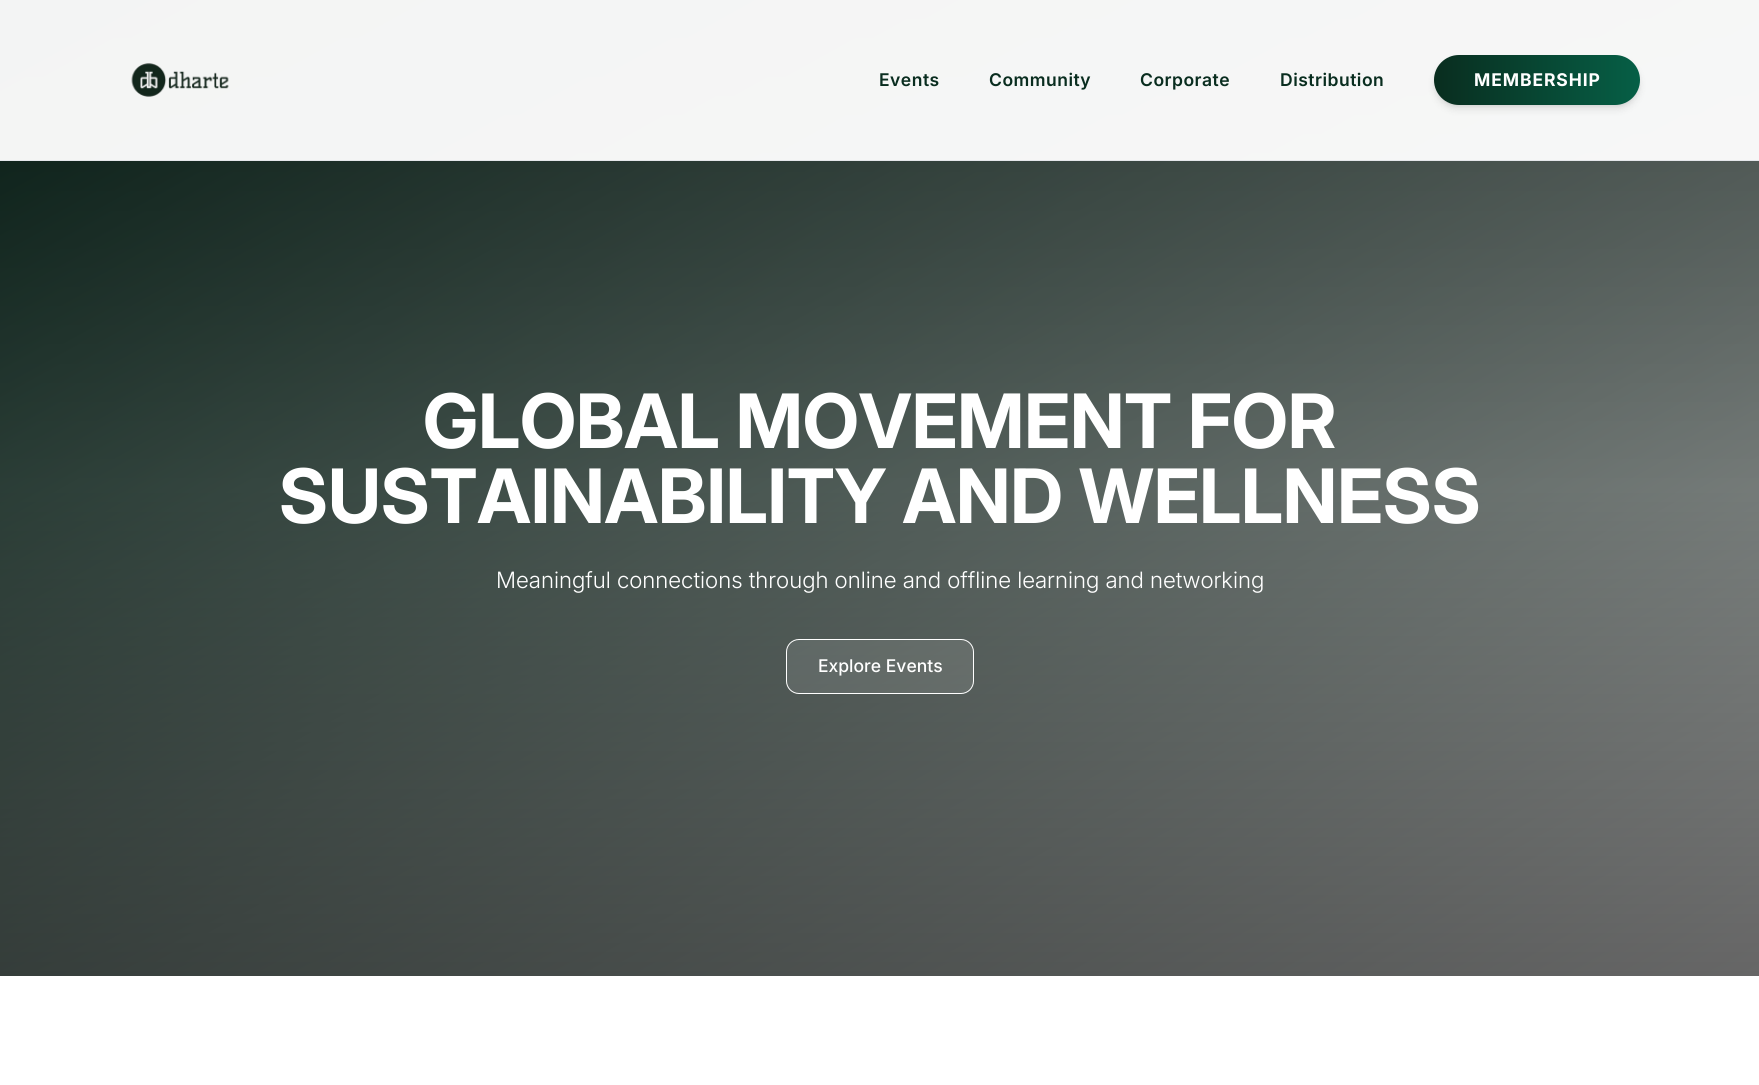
import math
import cairo



def draw_spaced(context, x, y, s, letter, word):
    context.move_to(x, y)
    for ch in s:
        context.show_text(ch)
        context.rel_move_to(letter + word * (ch == ' '), 0)


def rounded_rect(context, x, y, w, h, r):
    context.new_sub_path()
    for i, (u, v) in enumerate([(x + w - r, y + h - r), (x + r, y + h - r), (x + r, y + r), (x + w - r, y + r)]):
        context.arc(u, v, r, i * math.pi / 2, (i + 1) * math.pi / 2)
    context.close_path()


def draw_shadow(context, x, y, w, h, r, blur, alpha):
    context.push_group_with_content(cairo.Content.ALPHA)
    context.set_operator(cairo.Operator.SOURCE)
    for i in range(15, -16, -2):
        e = blur * i / 6
        if min(w, h) + 2 * e > 0:
            context.set_source_rgba(0, 0, 0, alpha * math.erfc((i - 1) / 8.5) / 2)
            rounded_rect(context, x - e, y - e, w + 2 * e, h + 2 * e, max(0, min(r + e + blur * .6, min(w, h) / 2 + e)))
            context.fill()
    context.mask(context.pop_group())


def draw_image(context, path, x, y, w, h):
    context.save()
    context.set_source_surface(cairo.ImageSurface.create_from_png(path), x, y)
    context.rectangle(x, y, w, h)
    context.fill()
    context.restore()


def draw(context):
    context.set_source_rgb(1, 1, 1)
    context.paint()
    gradient = cairo.LinearGradient(466, -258, 1294, 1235)
    gradient.add_color_stop_rgba(0, 10 / 255, 51 / 255, 36 / 255, 1)
    gradient.add_color_stop_rgba(1, 1, 1, 1, 1)
    context.set_source(gradient)
    context.rectangle(0, 0, 1759, 976)
    context.fill()
    gradient = cairo.LinearGradient(880, 0, 880, 976)
    gradient.add_color_stop_rgba(0, 0, 0, 0, 0.5)
    gradient.add_color_stop_rgba(0.5, 0, 0, 0, 0.4)
    gradient.add_color_stop_rgba(1, 0, 0, 0, 0.6)
    context.set_source(gradient)
    context.rectangle(0, 0, 1759, 976)
    context.fill()
    context.set_source_rgba(1, 1, 1, 0.95)
    context.rectangle(0, 0, 1759, 160)
    context.fill()
    context.set_source_rgb(229 / 255, 231 / 255, 235 / 255)
    context.rectangle(0, 160, 1759, 1)
    context.fill()
    draw_image(context, "images/1.png", 131, 63, 98, 34)
    context.set_source_rgb(0, 0, 0)
    draw_shadow(context, 1436, 60, 202, 45, 22.5, 2.5, 0.1)
    draw_shadow(context, 1435, 61, 204, 48, 24, 4, 0.1)
    gradient = cairo.LinearGradient(1434, 80, 1640, 80)
    gradient.add_color_stop_rgba(0, 9 / 255, 45 / 255, 31 / 255, 1)
    gradient.add_color_stop_rgba(1, 6 / 255, 95 / 255, 70 / 255, 1)
    context.set_source(gradient)
    rounded_rect(context, 1434, 55, 206, 50, 25)
    context.fill()
    context.set_source_rgba(1, 1, 1, 0.1)
    rounded_rect(context, 786.5, 639.5, 187, 54, 12.5)
    context.fill_preserve()
    context.set_source_rgb(1, 1, 1)
    context.set_line_width(1)
    context.stroke()
    context.select_font_face("Inter SemiBold")
    context.set_font_size(17.5)
    context.set_source_rgb(9 / 255, 45 / 255, 31 / 255)
    draw_spaced(context, 879, 86, "Events", 0.5, 0)
    draw_spaced(context, 989, 86, "Community", 0.5, 0)
    draw_spaced(context, 1140, 86, "Corporate", 0.5, 0)
    draw_spaced(context, 1280, 86, "Distribution", 0.5, 0)
    context.select_font_face("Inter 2", cairo.FontSlant.NORMAL, cairo.FontWeight.BOLD)
    context.set_source_rgb(1, 1, 1)
    draw_spaced(context, 1474, 86, "MEMBERSHIP", 0.9, 0)
    context.select_font_face("Inter", cairo.FontSlant.NORMAL, cairo.FontWeight.BOLD)
    context.set_font_size(75)
    context.move_to(423, 448)
    context.show_text("GLOBAL MOVEMENT FOR")
    context.move_to(279, 523)
    context.show_text("SUSTAINABILITY AND WELLNESS")
    context.select_font_face("Inter Light")
    context.set_font_size(22.5)
    context.move_to(496, 588)
    context.show_text("Meaningful connections through online and offline learning and networking")
    context.select_font_face("Inter Medium")
    context.set_font_size(17.5)
    context.move_to(818, 672)
    context.show_text("Explore Events")


surface = cairo.ImageSurface(cairo.Format.RGB24, 1759, 1085)
context = cairo.Context(surface)
options = cairo.FontOptions()
options.set_hint_metrics(cairo.HintMetrics.OFF)
options.set_hint_style(cairo.HintStyle.NONE)
context.set_font_options(options)
context.set_miter_limit(4)
draw(context)
surface.write_to_png("out.png")
